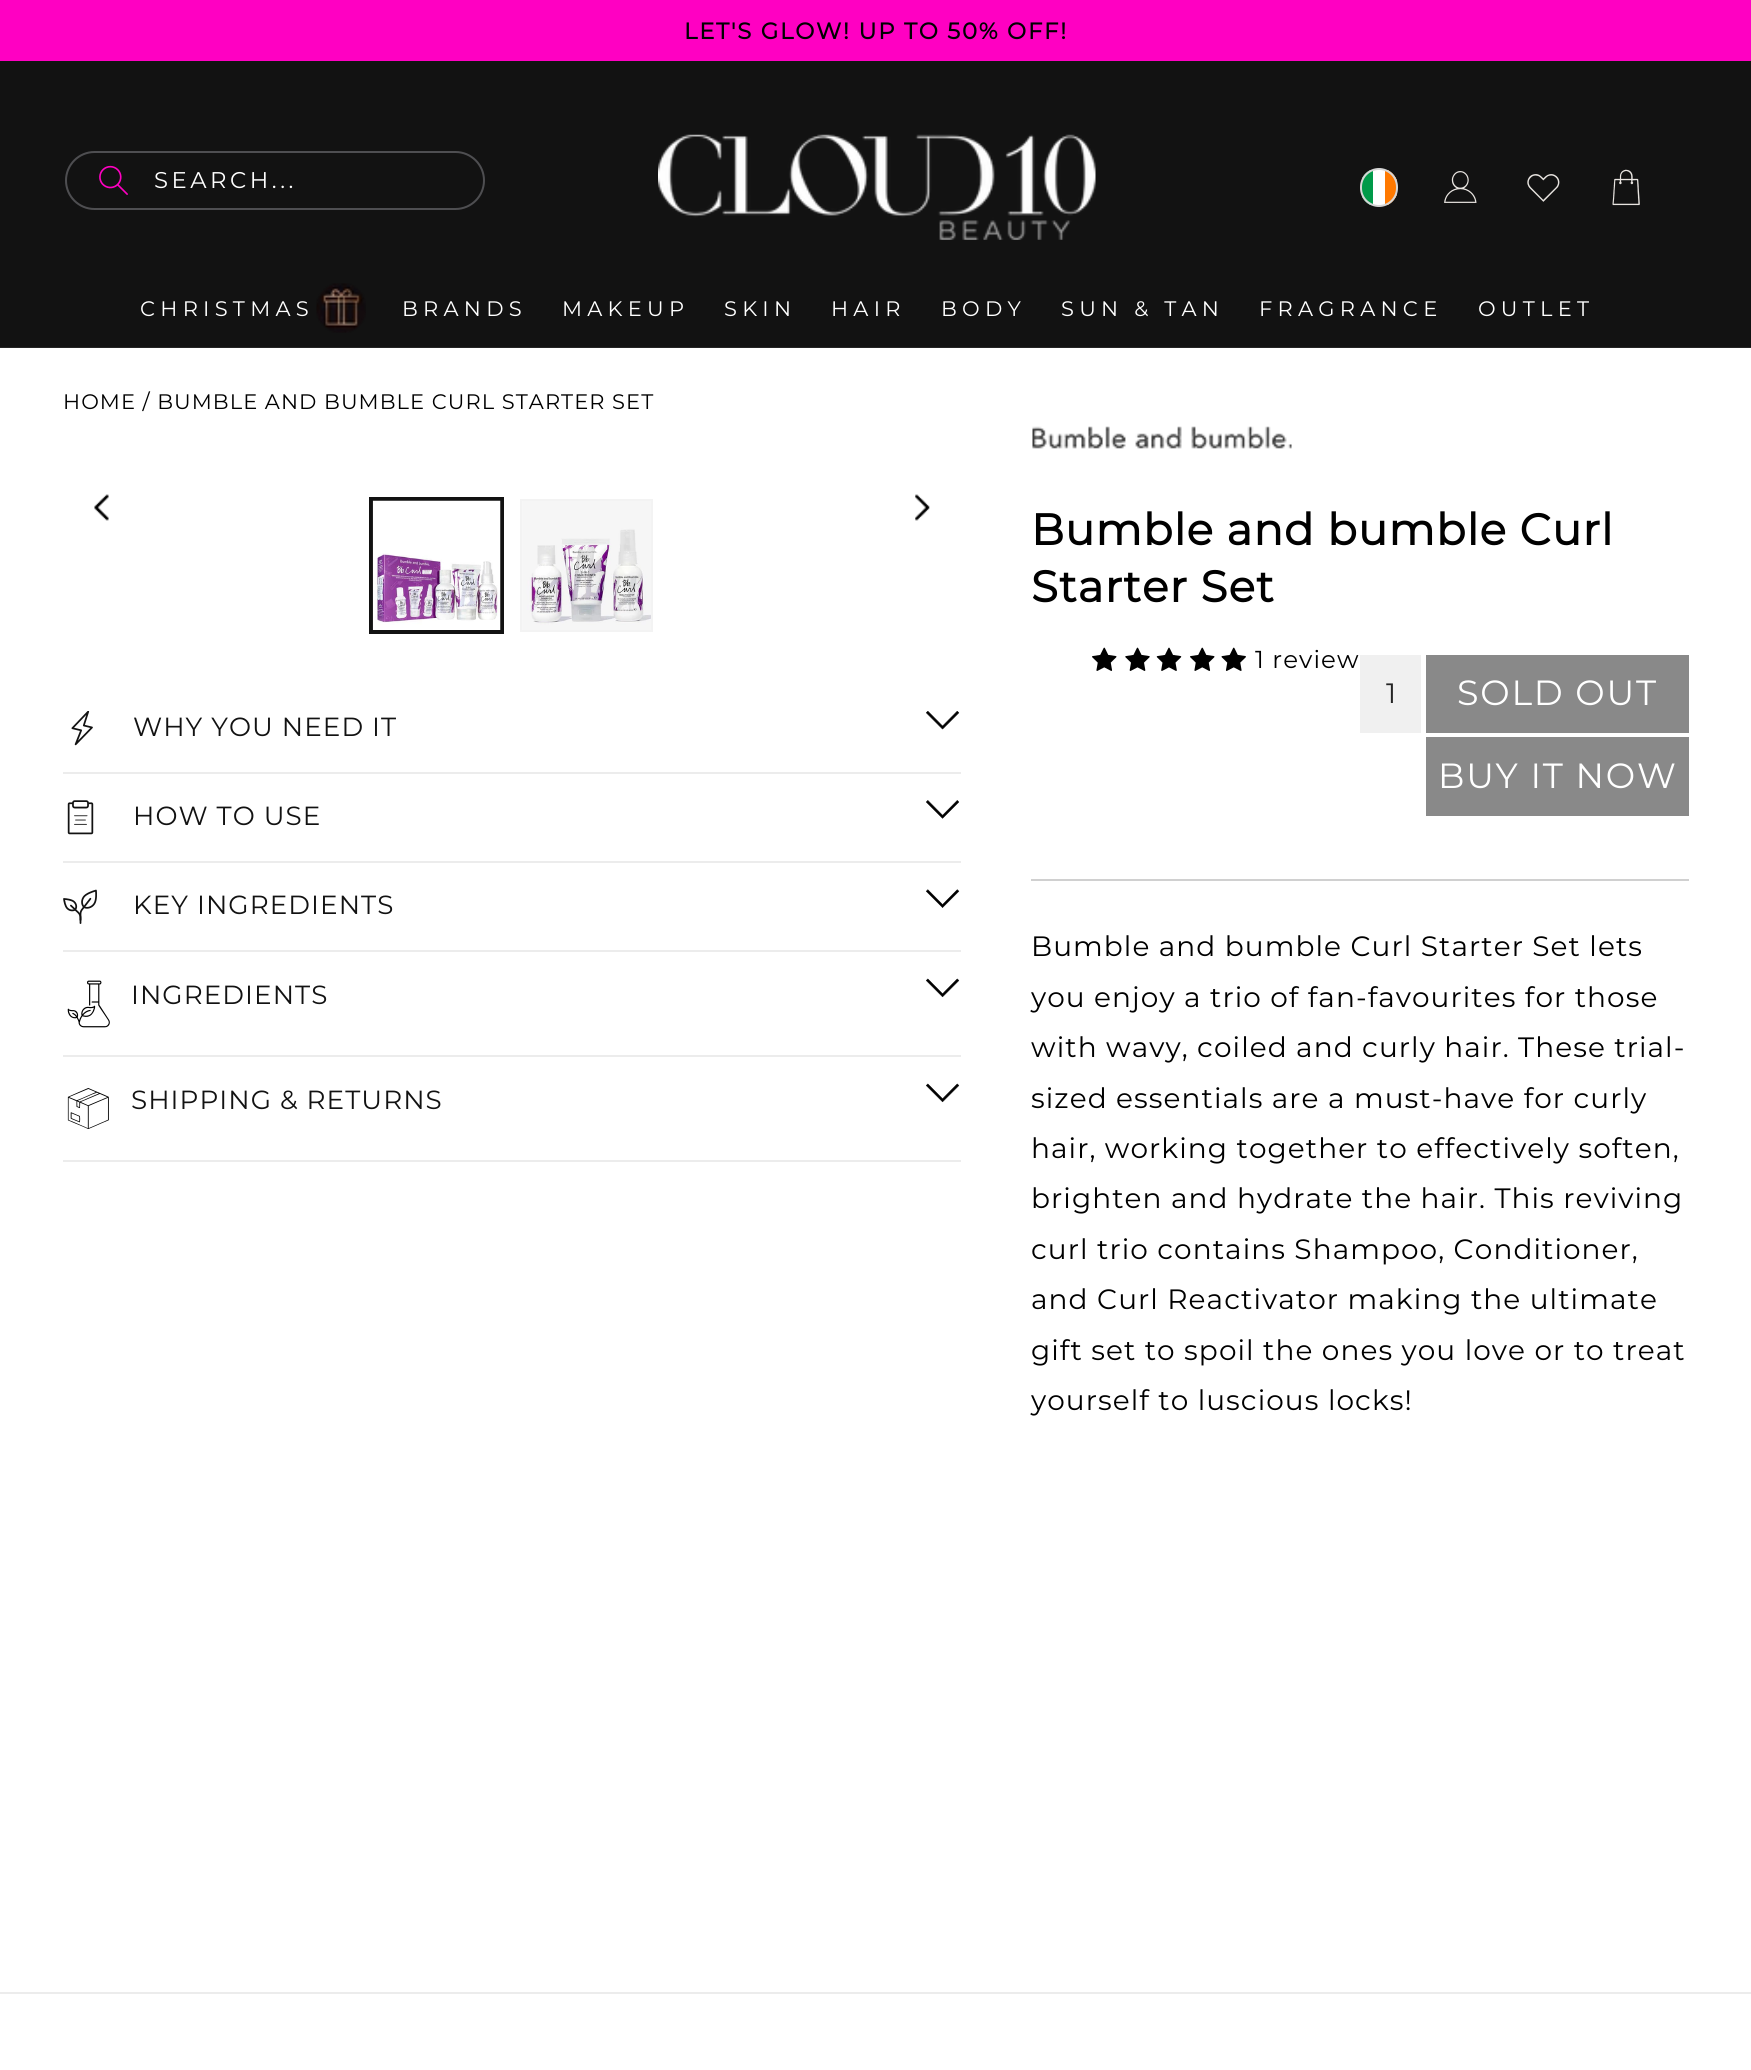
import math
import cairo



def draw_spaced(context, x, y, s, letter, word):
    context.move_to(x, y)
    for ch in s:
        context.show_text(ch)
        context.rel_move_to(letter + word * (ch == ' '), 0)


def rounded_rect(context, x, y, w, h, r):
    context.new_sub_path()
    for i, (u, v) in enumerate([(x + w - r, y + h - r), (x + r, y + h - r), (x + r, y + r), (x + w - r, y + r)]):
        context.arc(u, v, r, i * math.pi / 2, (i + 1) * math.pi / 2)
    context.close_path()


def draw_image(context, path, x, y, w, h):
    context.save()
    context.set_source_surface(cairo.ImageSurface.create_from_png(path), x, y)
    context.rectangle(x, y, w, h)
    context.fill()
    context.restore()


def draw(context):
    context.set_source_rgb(1, 1, 1)
    context.paint()
    context.set_source_rgb(1, 0, 194 / 255)
    context.rectangle(0, 0, 1751, 61)
    context.fill()
    context.set_source_rgb(18 / 255, 18 / 255, 18 / 255)
    context.rectangle(0, 61, 1751, 286)
    context.fill()
    context.set_source_rgb(37 / 255, 37 / 255, 37 / 255)
    context.rectangle(0, 347, 1751, 1)
    context.fill()
    rounded_rect(context, 66, 152, 418, 57, 28.5)
    context.set_source_rgb(78 / 255, 78 / 255, 81 / 255)
    context.stroke()
    draw_image(context, "images/1.png", 99, 165, 29, 30)
    draw_image(context, "images/2.png", 658, 134, 438, 106)
    context.save()
    rounded_rect(context, 1360, 168, 38, 39, 19)
    context.clip()
    context.set_source_rgb(1, 1, 1)
    context.rectangle(1362, 170, 35, 35)
    context.fill()
    context.set_source_rgb(0, 154 / 255, 73 / 255)
    context.rectangle(1362, 170, 11, 35)
    context.fill()
    context.set_source_rgb(1, 121 / 255, 0)
    context.rectangle(1385, 170, 12, 35)
    context.fill()
    context.restore()
    rounded_rect(context, 1361, 169, 36, 37, 18)
    context.set_source_rgb(214 / 255, 214 / 255, 214 / 255)
    context.stroke()
    draw_image(context, "images/3.png", 1444, 171, 33, 32)
    draw_image(context, "images/4.png", 1527, 174, 33, 28)
    draw_image(context, "images/5.png", 1612, 169, 28, 37)
    draw_image(context, "images/6.png", 316, 283, 50, 50)
    draw_image(context, "images/7.png", 94, 494, 15, 27)
    draw_image(context, "images/8.png", 915, 494, 15, 27)
    context.rectangle(370, 498, 133, 135)
    context.set_source_rgb(18 / 255, 18 / 255, 18 / 255)
    context.stroke()
    context.rectangle(372, 500, 129, 131)
    context.stroke()
    draw_image(context, "images/9.png", 372, 500, 129, 130)
    context.rectangle(521, 500, 131, 131)
    context.set_source_rgb(243 / 255, 243 / 255, 243 / 255)
    context.stroke()
    draw_image(context, "images/10.png", 522, 501, 129, 129)
    context.set_source_rgb(236 / 255, 236 / 255, 236 / 255)
    context.rectangle(63, 772, 898, 2)
    context.fill()
    draw_image(context, "images/11.png", 71, 711, 22, 35)
    draw_image(context, "images/12.png", 926, 711, 34, 19)
    context.rectangle(63, 861, 898, 2)
    context.fill()
    draw_image(context, "images/13.png", 67, 800, 27, 35)
    draw_image(context, "images/14.png", 926, 800, 33, 19)
    context.rectangle(63, 950, 898, 2)
    context.fill()
    draw_image(context, "images/15.png", 63, 889, 34, 35)
    draw_image(context, "images/16.png", 926, 889, 34, 19)
    context.rectangle(63, 1055, 898, 2)
    context.fill()
    draw_image(context, "images/17.png", 67, 980, 43, 48)
    draw_image(context, "images/18.png", 926, 978, 34, 20)
    context.rectangle(63, 1160, 898, 2)
    context.fill()
    draw_image(context, "images/19.png", 67, 1088, 42, 41)
    draw_image(context, "images/18.png", 926, 1083, 34, 20)
    draw_image(context, "images/20.png", 1032, 426, 260, 23)
    draw_image(context, "images/21.png", 1092, 647, 25, 24)
    draw_image(context, "images/22.png", 1125, 647, 25, 24)
    draw_image(context, "images/23.png", 1156, 647, 26, 24)
    draw_image(context, "images/21.png", 1190, 647, 25, 24)
    draw_image(context, "images/24.png", 1221, 647, 25, 24)
    context.set_source_rgb(240 / 255, 240 / 255, 240 / 255)
    context.rectangle(1360, 655, 61, 78)
    context.fill()
    context.set_source_rgb(137 / 255, 137 / 255, 137 / 255)
    context.rectangle(1426, 655, 263, 78)
    context.fill()
    context.rectangle(1426, 737, 263, 79)
    context.fill()
    context.set_source_rgb(208 / 255, 208 / 255, 208 / 255)
    context.rectangle(1031, 879, 658, 2)
    context.fill()
    context.set_source_rgb(236 / 255, 236 / 255, 236 / 255)
    context.rectangle(0, 1992, 1751, 2)
    context.fill()
    context.select_font_face("Montserrat", cairo.FontSlant.NORMAL, cairo.FontWeight.BOLD)
    context.set_font_size(22.75)
    context.set_source_rgb(0, 0, 0)
    draw_spaced(context, 684, 39, "LET'S GLOW! UP TO 50% OFF!", 1.75, 0)
    context.select_font_face("Montserrat")
    context.set_source_rgb(1, 1, 1)
    draw_spaced(context, 154, 188, "SEARCH...", 3.5, 0)
    context.set_font_size(21)
    draw_spaced(context, 140, 316, "CHRISTMAS", 5.25, 0)
    draw_spaced(context, 402, 316, "BRANDS", 5.25, 0)
    draw_spaced(context, 562, 316, "MAKEUP", 5.25, 0)
    draw_spaced(context, 724, 316, "SKIN", 5.25, 0)
    draw_spaced(context, 831, 316, "HAIR", 5.25, 0)
    draw_spaced(context, 941, 316, "BODY", 5.25, 0)
    draw_spaced(context, 1061, 316, "SUN & TAN", 5.25, 0)
    draw_spaced(context, 1259, 316, "FRAGRANCE", 5.25, 0)
    draw_spaced(context, 1478, 316, "OUTLET", 5.25, 0)
    context.set_source_rgb(0, 0, 0)
    draw_spaced(context, 63, 409, "HOME / BUMBLE AND BUMBLE CURL STARTER SET", 1.05, 0)
    context.set_font_size(26.25)
    context.set_source_rgb(18 / 255, 18 / 255, 18 / 255)
    draw_spaced(context, 133, 736, "WHY YOU NEED IT", 1.05, 0)
    draw_spaced(context, 133, 825, "HOW TO USE", 1.05, 0)
    draw_spaced(context, 133, 914, "KEY INGREDIENTS", 1.05, 0)
    draw_spaced(context, 131, 1004, "INGREDIENTS", 1.05, 0)
    draw_spaced(context, 131, 1109, "SHIPPING & RETURNS", 1.05, 0)
    context.select_font_face("Montserrat", cairo.FontSlant.NORMAL, cairo.FontWeight.BOLD)
    context.set_font_size(43.75)
    context.set_source_rgb(0, 0, 0)
    draw_spaced(context, 1031, 545, "Bumble and bumble Curl", 1.05, 0)
    draw_spaced(context, 1031, 602, "Starter Set", 1.05, 0)
    context.select_font_face("Montserrat")
    context.set_font_size(24.5)
    draw_spaced(context, 1255, 668, "1 review", 1.05, 0)
    context.set_font_size(28)
    context.set_source_rgb(36 / 255, 36 / 255, 36 / 255)
    context.move_to(1386, 703)
    context.show_text("1")
    context.set_font_size(35)
    context.set_source_rgb(1, 1, 1)
    draw_spaced(context, 1457, 705, "SOLD OUT", 1.75, 0)
    draw_spaced(context, 1438, 788, "BUY IT NOW", 1.75, 0)
    context.set_font_size(28)
    context.set_source_rgb(0, 0, 0)
    draw_spaced(context, 1031, 956, "Bumble and bumble Curl Starter Set lets", 1.05, 0)
    draw_spaced(context, 1031, 1007, "you enjoy a trio of fan-favourites for those", 1.05, 0)
    draw_spaced(context, 1031, 1057, "with wavy, coiled and curly hair. These trial-", 1.05, 0)
    draw_spaced(context, 1031, 1108, "sized essentials are a must-have for curly", 1.05, 0)
    draw_spaced(context, 1031, 1158, "hair, working together to effectively soften,", 1.05, 0)
    draw_spaced(context, 1031, 1208, "brighten and hydrate the hair. This reviving", 1.05, 0)
    draw_spaced(context, 1031, 1259, "curl trio contains Shampoo, Conditioner,", 1.05, 0)
    draw_spaced(context, 1031, 1309, "and Curl Reactivator making the ultimate", 1.05, 0)
    draw_spaced(context, 1031, 1360, "gift set to spoil the ones you love or to treat", 1.05, 0)
    draw_spaced(context, 1031, 1410, "yourself to luscious locks!", 1.05, 0)


surface = cairo.ImageSurface(cairo.Format.RGB24, 1751, 2070)
context = cairo.Context(surface)
options = cairo.FontOptions()
options.set_hint_metrics(cairo.HintMetrics.OFF)
options.set_hint_style(cairo.HintStyle.NONE)
context.set_font_options(options)
context.set_miter_limit(4)
draw(context)
surface.write_to_png("out.png")
